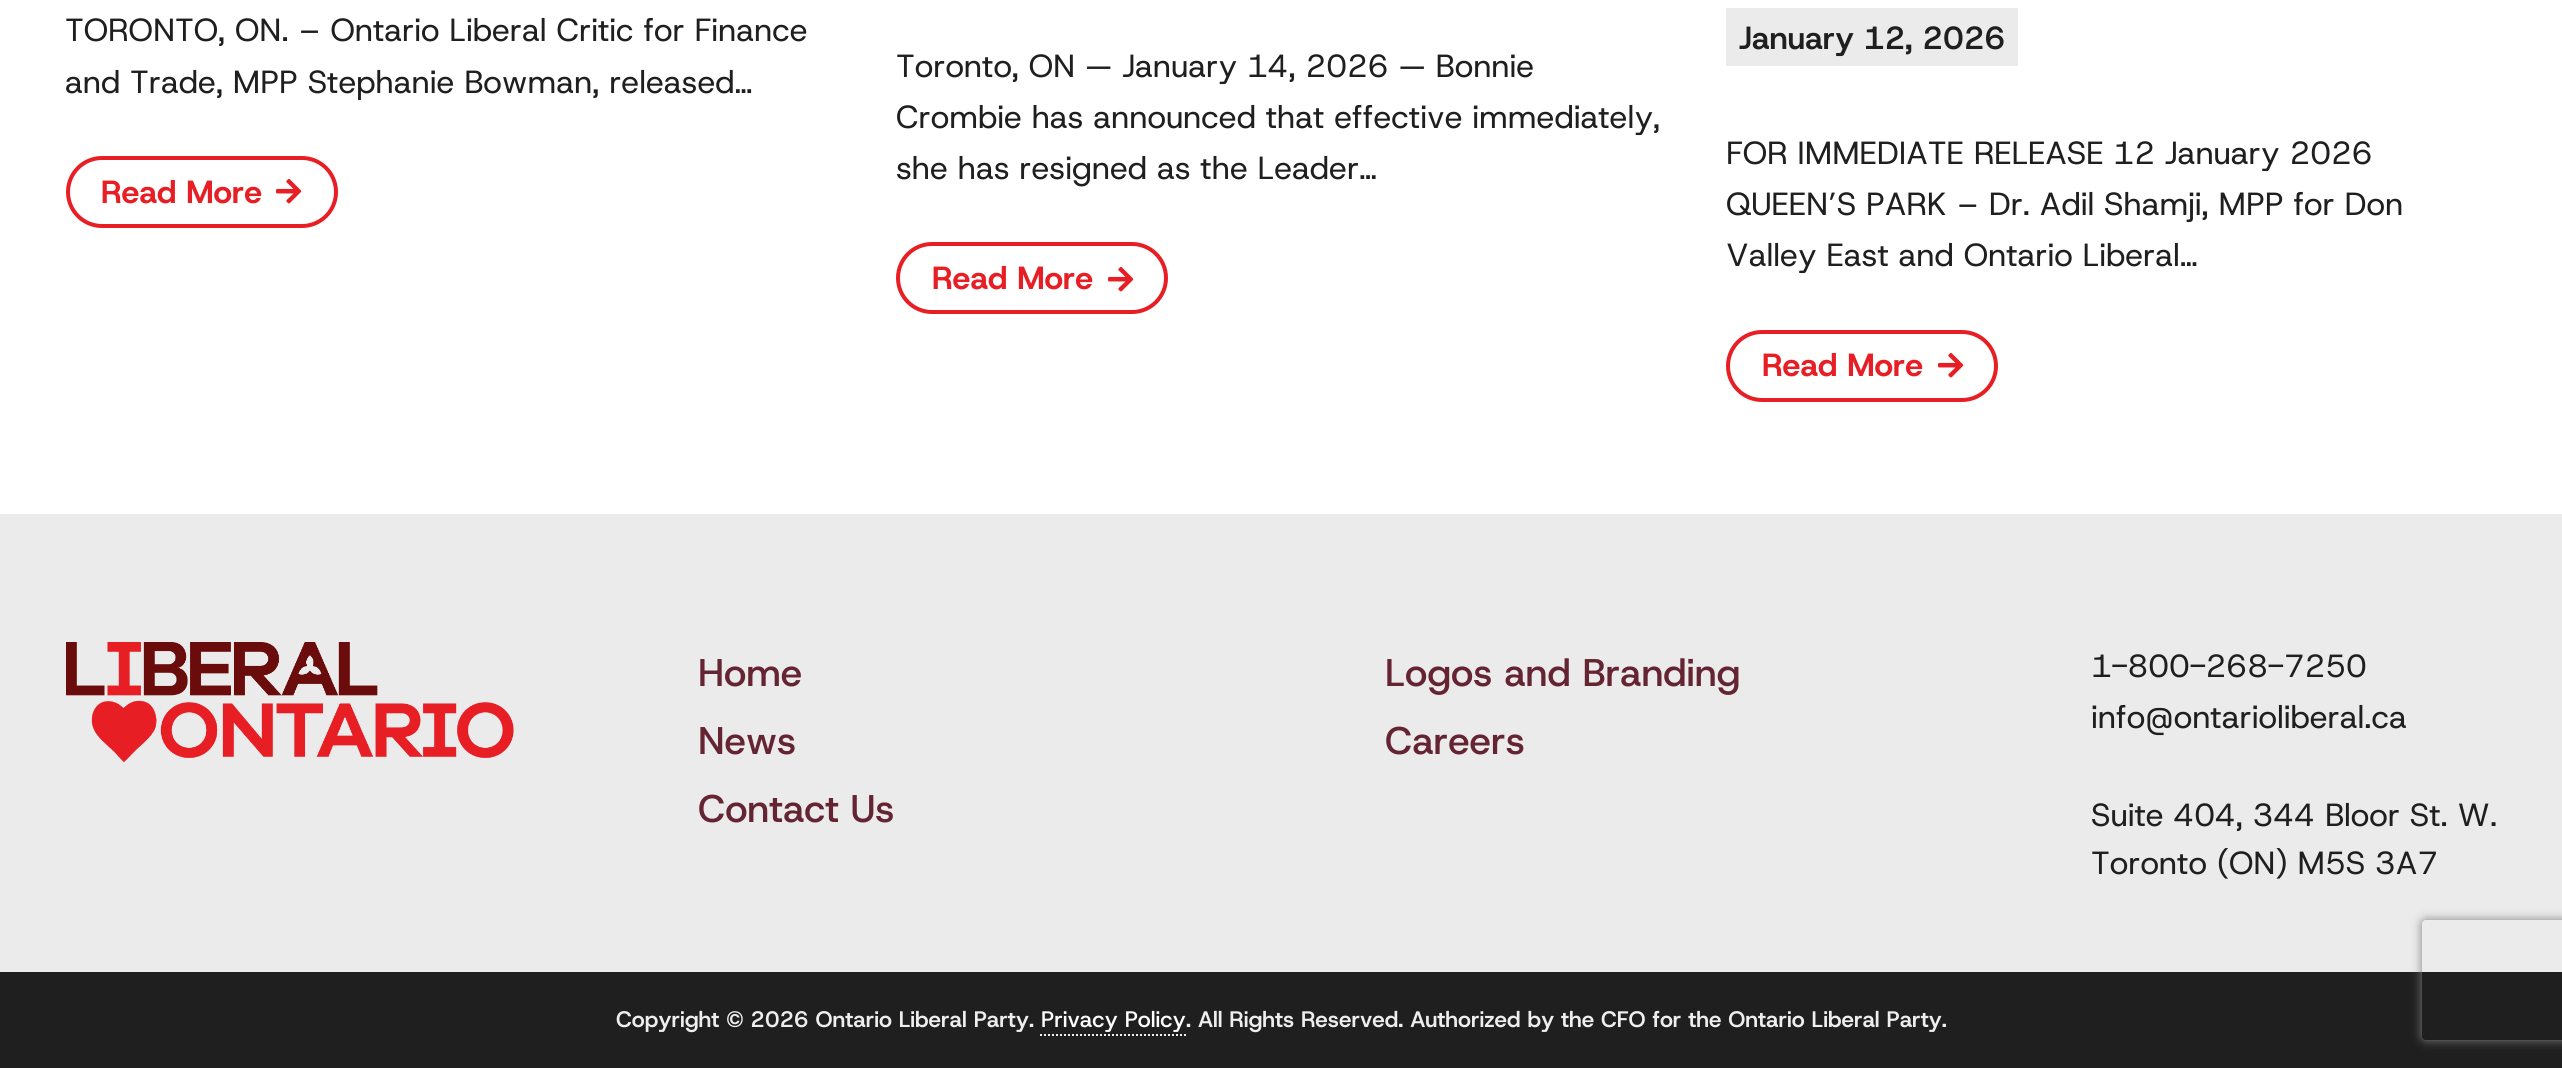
import math
import cairo



def rounded_rect(context, x, y, w, h, r):
    context.new_sub_path()
    for i, (u, v) in enumerate([(x + w - r, y + h - r), (x + r, y + h - r), (x + r, y + r), (x + w - r, y + r)]):
        context.arc(u, v, r, i * math.pi / 2, (i + 1) * math.pi / 2)
    context.close_path()


def draw_shadow(context, x, y, w, h, r, blur, alpha):
    context.push_group_with_content(cairo.Content.ALPHA)
    context.set_operator(cairo.Operator.SOURCE)
    for i in range(15, -16, -2):
        e = blur * i / 6
        if min(w, h) + 2 * e > 0:
            context.set_source_rgba(0, 0, 0, alpha * math.erfc((i - 1) / 8.5) / 2)
            rounded_rect(context, x - e, y - e, w + 2 * e, h + 2 * e, max(0, min(r + e + blur * .6, min(w, h) / 2 + e)))
            context.fill()
    context.mask(context.pop_group())


def draw_image(context, path, x, y, w, h):
    context.save()
    context.set_source_surface(cairo.ImageSurface.create_from_png(path), x, y)
    context.rectangle(x, y, w, h)
    context.fill()
    context.restore()


def draw(context):
    context.set_source_rgb(1, 1, 1)
    context.paint()
    rounded_rect(context, 68, 158, 268, 68, 34)
    context.set_source_rgb(232 / 255, 30 / 255, 37 / 255)
    context.set_line_width(4)
    context.stroke()
    draw_image(context, "images/1.png", 276, 179, 26, 25)
    rounded_rect(context, 898, 244, 268, 68, 34)
    context.stroke()
    draw_image(context, "images/1.png", 1108, 267, 26, 25)
    context.set_source_rgb(235 / 255, 235 / 255, 236 / 255)
    context.rectangle(1726, 8, 292, 58)
    context.fill()
    rounded_rect(context, 1728, 332, 268, 68, 34)
    context.set_source_rgb(232 / 255, 30 / 255, 37 / 255)
    context.stroke()
    draw_image(context, "images/1.png", 1938, 353, 26, 25)
    context.set_source_rgb(235 / 255, 235 / 255, 236 / 255)
    context.rectangle(0, 514, 2562, 458)
    context.fill()
    draw_image(context, "images/2.png", 66, 642, 448, 120)
    context.set_source_rgb(31 / 255, 31 / 255, 32 / 255)
    context.rectangle(0, 972, 2562, 96)
    context.fill()
    context.new_path()
    context.move_to(1040, 1035)
    context.line_to(1186, 1035)
    context.set_source_rgb(238 / 255, 238 / 255, 238 / 255)
    context.set_line_width(2)
    context.set_dash([2, 2])
    context.stroke()
    context.save()
    context.set_fill_rule(cairo.FillRule.EVEN_ODD)
    context.new_path()
    context.move_to(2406, 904)
    context.line_to(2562, 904)
    context.line_to(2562, 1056)
    context.line_to(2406, 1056)
    context.close_path()
    context.move_to(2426, 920)
    context.line_to(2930, 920)
    context.curve_to(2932, 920, 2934, 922, 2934, 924)
    context.line_to(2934, 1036)
    context.curve_to(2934, 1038, 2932, 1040, 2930, 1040)
    context.line_to(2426, 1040)
    context.curve_to(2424, 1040, 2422, 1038, 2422, 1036)
    context.line_to(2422, 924)
    context.curve_to(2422, 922, 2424, 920, 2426, 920)
    context.close_path()
    context.clip()
    context.set_source_rgb(128 / 255, 128 / 255, 128 / 255)
    draw_shadow(context, 2422, 920, 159, 120, 4, 5, 1)
    context.restore()
    context.select_font_face("Host Grotesk")
    context.set_font_size(32)
    context.set_source_rgb(31 / 255, 31 / 255, 32 / 255)
    context.move_to(65, 41)
    context.show_text("TORONTO, ON. – Ontario Liberal Critic for Finance")
    context.move_to(65, 93)
    context.show_text("and Trade, MPP Stephanie Bowman, released…")
    context.select_font_face("Host Grotesk", cairo.FontSlant.NORMAL, cairo.FontWeight.BOLD)
    context.set_source_rgb(232 / 255, 30 / 255, 37 / 255)
    context.move_to(101, 203)
    context.show_text("Read More")
    context.select_font_face("Host Grotesk")
    context.set_source_rgb(31 / 255, 31 / 255, 32 / 255)
    context.move_to(896, 77)
    context.show_text("Toronto, ON — January 14, 2026 — Bonnie")
    context.move_to(896, 128)
    context.show_text("Crombie has announced that effective immediately,")
    context.move_to(896, 179)
    context.show_text("she has resigned as the Leader…")
    context.select_font_face("Host Grotesk", cairo.FontSlant.NORMAL, cairo.FontWeight.BOLD)
    context.set_source_rgb(232 / 255, 30 / 255, 37 / 255)
    context.move_to(932, 289)
    context.show_text("Read More")
    context.select_font_face("Host Grotesk SemiBold")
    context.set_source_rgb(31 / 255, 31 / 255, 32 / 255)
    context.move_to(1739, 49)
    context.show_text("January 12, 2026")
    context.select_font_face("Host Grotesk")
    context.move_to(1726, 164)
    context.show_text("FOR IMMEDIATE RELEASE 12 January 2026")
    context.move_to(1726, 215)
    context.show_text("QUEEN’S PARK – Dr. Adil Shamji, MPP for Don")
    context.move_to(1726, 266)
    context.show_text("Valley East and Ontario Liberal…")
    context.select_font_face("Host Grotesk", cairo.FontSlant.NORMAL, cairo.FontWeight.BOLD)
    context.set_source_rgb(232 / 255, 30 / 255, 37 / 255)
    context.move_to(1762, 376)
    context.show_text("Read More")
    context.select_font_face("Host Grotesk Medium")
    context.set_font_size(38.5)
    context.set_source_rgb(100 / 255, 36 / 255, 50 / 255)
    context.move_to(698, 686)
    context.show_text("Home")
    context.move_to(1385, 686)
    context.show_text("Logos and Branding")
    context.move_to(698, 754)
    context.show_text("News")
    context.move_to(1385, 754)
    context.show_text("Careers")
    context.move_to(698, 822)
    context.show_text("Contact Us")
    context.select_font_face("Host Grotesk")
    context.set_font_size(32)
    context.set_source_rgb(31 / 255, 31 / 255, 32 / 255)
    context.move_to(2091, 677)
    context.show_text("1-800-268-7250")
    context.move_to(2091, 728)
    context.show_text("info@ontarioliberal.ca")
    context.move_to(2091, 826)
    context.show_text("Suite 404, 344 Bloor St. W.")
    context.move_to(2091, 874)
    context.show_text("Toronto (ON) M5S 3A7")
    context.select_font_face("Host Grotesk SemiBold")
    context.set_font_size(22.4)
    context.set_source_rgb(238 / 255, 238 / 255, 238 / 255)
    context.move_to(616, 1027)
    context.show_text("Copyright © 2026 Ontario Liberal Party.")
    context.select_font_face("Host Grotesk Medium")
    context.set_source_rgb(1, 1, 1)
    context.move_to(1041, 1027)
    context.show_text("Privacy Policy")
    context.select_font_face("Host Grotesk SemiBold")
    context.set_source_rgb(238 / 255, 238 / 255, 238 / 255)
    context.move_to(1186, 1027)
    context.show_text(". All Rights Reserved. Authorized by the CFO for the Ontario Liberal Party.")


surface = cairo.ImageSurface(cairo.Format.RGB24, 2562, 1068)
context = cairo.Context(surface)
options = cairo.FontOptions()
options.set_hint_metrics(cairo.HintMetrics.OFF)
options.set_hint_style(cairo.HintStyle.NONE)
context.set_font_options(options)
context.set_miter_limit(4)
draw(context)
surface.write_to_png("out.png")
